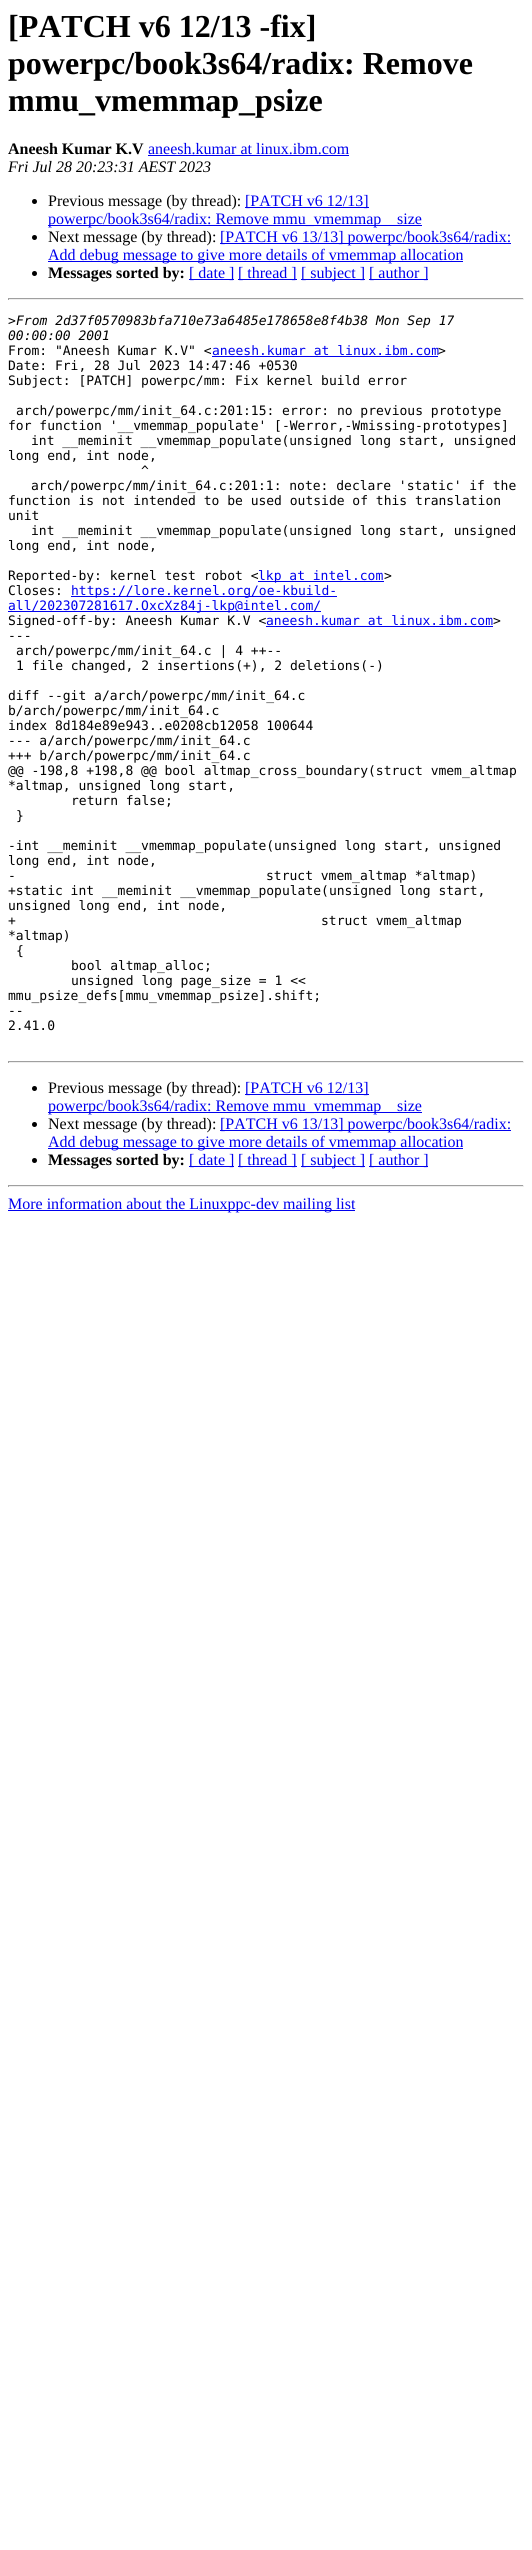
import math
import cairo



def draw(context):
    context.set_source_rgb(1, 1, 1)
    context.paint()
    context.set_source_rgb(0, 0, 238 / 255)
    context.rectangle(148, 155, 201, 1)
    context.fill()
    context.set_source_rgb(0, 0, 0)
    context.arc(34.5, 201.5, 2.5, 0, 2 * math.pi)
    context.fill()
    context.set_source_rgb(0, 0, 238 / 255)
    context.rectangle(245, 207, 124, 1)
    context.fill()
    context.rectangle(48, 225, 374, 1)
    context.fill()
    context.set_source_rgb(0, 0, 0)
    context.arc(34.5, 237.5, 2.5, 0, 2 * math.pi)
    context.fill()
    context.set_source_rgb(0, 0, 238 / 255)
    context.rectangle(220, 243, 291, 1)
    context.fill()
    context.rectangle(48, 261, 415, 1)
    context.fill()
    context.set_source_rgb(0, 0, 0)
    context.arc(34.5, 273.5, 2.5, 0, 2 * math.pi)
    context.fill()
    context.set_source_rgb(0, 0, 238 / 255)
    context.rectangle(189, 279, 45, 1)
    context.fill()
    context.rectangle(238, 279, 59, 1)
    context.fill()
    context.rectangle(301, 279, 64, 1)
    context.fill()
    context.rectangle(369, 279, 59, 1)
    context.fill()
    context.set_source_rgb(159 / 255, 159 / 255, 159 / 255)
    context.rectangle(8, 298, 516, 1)
    context.fill()
    context.set_source_rgb(238 / 255, 238 / 255, 238 / 255)
    context.rectangle(523, 298, 1, 2)
    context.fill()
    context.rectangle(8, 299, 516, 1)
    context.fill()
    context.set_source_rgb(159 / 255, 159 / 255, 159 / 255)
    context.rectangle(8, 298, 1, 2)
    context.fill()
    context.set_source_rgb(0, 0, 238 / 255)
    context.rectangle(212, 356, 226, 1)
    context.fill()
    context.rectangle(258, 581, 126, 1)
    context.fill()
    context.rectangle(71, 596, 266, 1)
    context.fill()
    context.rectangle(8, 611, 313, 1)
    context.fill()
    context.rectangle(266, 626, 227, 1)
    context.fill()
    context.set_source_rgb(159 / 255, 159 / 255, 159 / 255)
    context.rectangle(8, 1061, 516, 1)
    context.fill()
    context.set_source_rgb(238 / 255, 238 / 255, 238 / 255)
    context.rectangle(523, 1061, 1, 2)
    context.fill()
    context.rectangle(8, 1062, 516, 1)
    context.fill()
    context.set_source_rgb(159 / 255, 159 / 255, 159 / 255)
    context.rectangle(8, 1061, 1, 2)
    context.fill()
    context.set_source_rgb(0, 0, 0)
    context.arc(34.5, 1088.5, 2.5, 0, 2 * math.pi)
    context.fill()
    context.set_source_rgb(0, 0, 238 / 255)
    context.rectangle(245, 1094, 124, 1)
    context.fill()
    context.rectangle(48, 1112, 374, 1)
    context.fill()
    context.set_source_rgb(0, 0, 0)
    context.arc(34.5, 1124.5, 2.5, 0, 2 * math.pi)
    context.fill()
    context.set_source_rgb(0, 0, 238 / 255)
    context.rectangle(220, 1130, 291, 1)
    context.fill()
    context.rectangle(48, 1148, 415, 1)
    context.fill()
    context.set_source_rgb(0, 0, 0)
    context.arc(34.5, 1160.5, 2.5, 0, 2 * math.pi)
    context.fill()
    context.set_source_rgb(0, 0, 238 / 255)
    context.rectangle(189, 1166, 45, 1)
    context.fill()
    context.rectangle(238, 1166, 59, 1)
    context.fill()
    context.rectangle(301, 1166, 64, 1)
    context.fill()
    context.rectangle(369, 1166, 59, 1)
    context.fill()
    context.set_source_rgb(159 / 255, 159 / 255, 159 / 255)
    context.rectangle(8, 1185, 516, 1)
    context.fill()
    context.set_source_rgb(238 / 255, 238 / 255, 238 / 255)
    context.rectangle(523, 1185, 1, 2)
    context.fill()
    context.rectangle(8, 1186, 516, 1)
    context.fill()
    context.set_source_rgb(159 / 255, 159 / 255, 159 / 255)
    context.rectangle(8, 1185, 1, 2)
    context.fill()
    context.set_source_rgb(0, 0, 238 / 255)
    context.rectangle(8, 1210, 347, 1)
    context.fill()
    context.select_font_face("Liberation Serif", cairo.FontSlant.NORMAL, cairo.FontWeight.BOLD)
    context.set_font_size(32)
    context.set_source_rgb(0, 0, 0)
    context.move_to(8, 37)
    context.show_text("[PATCH v6 12/13 -fix]")
    context.move_to(8, 74)
    context.show_text("powerpc/book3s64/radix: Remove")
    context.move_to(8, 111)
    context.show_text("mmu_vmemmap_psize")
    context.set_font_size(16)
    context.move_to(8, 154)
    context.show_text("Aneesh Kumar K.V")
    context.select_font_face("Liberation Serif")
    context.set_source_rgb(0, 0, 238 / 255)
    context.move_to(148, 154)
    context.show_text("aneesh.kumar at linux.ibm.com")
    context.select_font_face("Liberation Serif", cairo.FontSlant.ITALIC)
    context.set_source_rgb(0, 0, 0)
    context.move_to(8, 172)
    context.show_text("Fri Jul 28 20:23:31 AEST 2023")
    context.select_font_face("Liberation Serif")
    context.move_to(48, 206)
    context.show_text("Previous message (by thread):")
    context.set_source_rgb(0, 0, 238 / 255)
    context.move_to(245, 206)
    context.show_text("[PATCH v6 12/13]")
    context.move_to(48, 224)
    context.show_text("powerpc/book3s64/radix: Remove mmu_vmemmap")
    context.move_to(397, 224)
    context.show_text("size")
    context.set_source_rgb(0, 0, 0)
    context.move_to(48, 242)
    context.show_text("Next message (by thread):")
    context.set_source_rgb(0, 0, 238 / 255)
    context.move_to(220, 242)
    context.show_text("[PATCH v6 13/13] powerpc/book3s64/radix:")
    context.move_to(48, 260)
    context.show_text("Add debug message to give more details of vmemmap allocation")
    context.select_font_face("Liberation Serif", cairo.FontSlant.NORMAL, cairo.FontWeight.BOLD)
    context.set_source_rgb(0, 0, 0)
    context.move_to(48, 278)
    context.show_text("Messages sorted by:")
    context.select_font_face("Liberation Serif")
    context.set_source_rgb(0, 0, 238 / 255)
    context.move_to(189, 278)
    context.show_text("[ date ]")
    context.move_to(238, 278)
    context.show_text("[ thread ]")
    context.move_to(301, 278)
    context.show_text("[ subject ]")
    context.move_to(369, 278)
    context.show_text("[ author ]")
    context.select_font_face("DejaVu Sans Mono")
    context.set_font_size(13)
    context.set_source_rgb(0, 0, 0)
    context.move_to(8, 325)
    context.show_text(">")
    context.select_font_face("DejaVu Sans Mono", cairo.FontSlant.ITALIC)
    context.move_to(16, 325)
    context.show_text("From 2d37f0570983bfa710e73a6485e178658e8f4b38 Mon Sep 17")
    context.move_to(8, 340)
    context.show_text("00:00:00 2001")
    context.select_font_face("DejaVu Sans Mono")
    context.move_to(8, 355)
    context.show_text("From: \"Aneesh Kumar K.V\" <")
    context.set_source_rgb(0, 0, 238 / 255)
    context.move_to(212, 355)
    context.show_text("aneesh.kumar at linux.ibm.com")
    context.set_source_rgb(0, 0, 0)
    context.move_to(438, 355)
    context.show_text(">")
    context.move_to(8, 370)
    context.show_text("Date: Fri, 28 Jul 2023 14:47:46 +0530")
    context.move_to(8, 385)
    context.show_text("Subject: [PATCH] powerpc/mm: Fix kernel build error")
    context.move_to(16, 415)
    context.show_text("arch/powerpc/mm/init_64.c:201:15: error: no previous prototype")
    context.move_to(8, 430)
    context.show_text("for function '__vmemmap_populate' [-Werror,-Wmissing-prototypes]")
    context.move_to(31, 445)
    context.show_text("int __meminit __vmemmap_populate(unsigned long start, unsigned")
    context.move_to(8, 460)
    context.show_text("long end, int node,")
    context.move_to(141, 475)
    context.show_text("^")
    context.move_to(31, 490)
    context.show_text("arch/powerpc/mm/init_64.c:201:1: note: declare 'static' if the")
    context.move_to(8, 505)
    context.show_text("function is not intended to be used outside of this translation")
    context.move_to(8, 520)
    context.show_text("unit")
    context.move_to(31, 535)
    context.show_text("int __meminit __vmemmap_populate(unsigned long start, unsigned")
    context.move_to(8, 550)
    context.show_text("long end, int node,")
    context.move_to(8, 580)
    context.show_text("Reported-by: kernel test robot <")
    context.set_source_rgb(0, 0, 238 / 255)
    context.move_to(258, 580)
    context.show_text("lkp at intel.com")
    context.set_source_rgb(0, 0, 0)
    context.move_to(384, 580)
    context.show_text(">")
    context.move_to(8, 595)
    context.show_text("Closes:")
    context.set_source_rgb(0, 0, 238 / 255)
    context.move_to(71, 595)
    context.show_text("https://lore.kernel.org/oe-kbuild-")
    context.move_to(8, 610)
    context.show_text("all/202307281617.OxcXz84j-lkp@intel.com/")
    context.set_source_rgb(0, 0, 0)
    context.move_to(8, 625)
    context.show_text("Signed-off-by: Aneesh Kumar K.V <")
    context.set_source_rgb(0, 0, 238 / 255)
    context.move_to(266, 625)
    context.show_text("aneesh.kumar at linux.ibm.com")
    context.set_source_rgb(0, 0, 0)
    context.move_to(493, 625)
    context.show_text(">")
    context.move_to(8, 640)
    context.show_text("---")
    context.move_to(16, 655)
    context.show_text("arch/powerpc/mm/init_64.c | 4 ++--")
    context.move_to(16, 670)
    context.show_text("1 file changed, 2 insertions(+), 2 deletions(-)")
    context.move_to(8, 700)
    context.show_text("diff --git a/arch/powerpc/mm/init_64.c")
    context.move_to(8, 715)
    context.show_text("b/arch/powerpc/mm/init_64.c")
    context.move_to(8, 730)
    context.show_text("index 8d184e89e943..e0208cb12058 100644")
    context.move_to(8, 745)
    context.show_text("--- a/arch/powerpc/mm/init_64.c")
    context.move_to(8, 760)
    context.show_text("+++ b/arch/powerpc/mm/init_64.c")
    context.move_to(8, 775)
    context.show_text("@@ -198,8 +198,8 @@ bool altmap_cross_boundary(struct vmem_altmap")
    context.move_to(8, 790)
    context.show_text("*altmap, unsigned long start,")
    context.move_to(71, 805)
    context.show_text("return false;")
    context.move_to(16, 820)
    context.show_text("}")
    context.move_to(8, 850)
    context.show_text("-int __meminit __vmemmap_populate(unsigned long start, unsigned")
    context.move_to(8, 865)
    context.show_text("long end, int node,")
    context.move_to(8, 880)
    context.show_text("-")
    context.move_to(266, 880)
    context.show_text("struct vmem_altmap *altmap)")
    context.move_to(8, 895)
    context.show_text("+static int __meminit __vmemmap_populate(unsigned long start,")
    context.move_to(8, 910)
    context.show_text("unsigned long end, int node,")
    context.move_to(8, 925)
    context.show_text("+")
    context.move_to(321, 925)
    context.show_text("struct vmem_altmap")
    context.move_to(8, 940)
    context.show_text("*altmap)")
    context.move_to(16, 955)
    context.show_text("{")
    context.move_to(71, 970)
    context.show_text("bool altmap_alloc;")
    context.move_to(71, 985)
    context.show_text("unsigned long page_size = 1 <<")
    context.move_to(8, 1000)
    context.show_text("mmu_psize_defs[mmu_vmemmap_psize].shift;")
    context.move_to(8, 1015)
    context.show_text("--")
    context.move_to(8, 1030)
    context.show_text("2.41.0")
    context.select_font_face("Liberation Serif")
    context.set_font_size(16)
    context.move_to(48, 1093)
    context.show_text("Previous message (by thread):")
    context.set_source_rgb(0, 0, 238 / 255)
    context.move_to(245, 1093)
    context.show_text("[PATCH v6 12/13]")
    context.move_to(48, 1111)
    context.show_text("powerpc/book3s64/radix: Remove mmu_vmemmap")
    context.move_to(397, 1111)
    context.show_text("size")
    context.set_source_rgb(0, 0, 0)
    context.move_to(48, 1129)
    context.show_text("Next message (by thread):")
    context.set_source_rgb(0, 0, 238 / 255)
    context.move_to(220, 1129)
    context.show_text("[PATCH v6 13/13] powerpc/book3s64/radix:")
    context.move_to(48, 1147)
    context.show_text("Add debug message to give more details of vmemmap allocation")
    context.select_font_face("Liberation Serif", cairo.FontSlant.NORMAL, cairo.FontWeight.BOLD)
    context.set_source_rgb(0, 0, 0)
    context.move_to(48, 1165)
    context.show_text("Messages sorted by:")
    context.select_font_face("Liberation Serif")
    context.set_source_rgb(0, 0, 238 / 255)
    context.move_to(189, 1165)
    context.show_text("[ date ]")
    context.move_to(238, 1165)
    context.show_text("[ thread ]")
    context.move_to(301, 1165)
    context.show_text("[ subject ]")
    context.move_to(369, 1165)
    context.show_text("[ author ]")
    context.move_to(8, 1209)
    context.show_text("More information about the Linuxppc-dev mailing list")


surface = cairo.ImageSurface(cairo.Format.RGB24, 532, 2550)
context = cairo.Context(surface)
options = cairo.FontOptions()
options.set_hint_metrics(cairo.HintMetrics.OFF)
options.set_hint_style(cairo.HintStyle.NONE)
context.set_font_options(options)
context.set_miter_limit(4)
draw(context)
surface.write_to_png("out.png")
